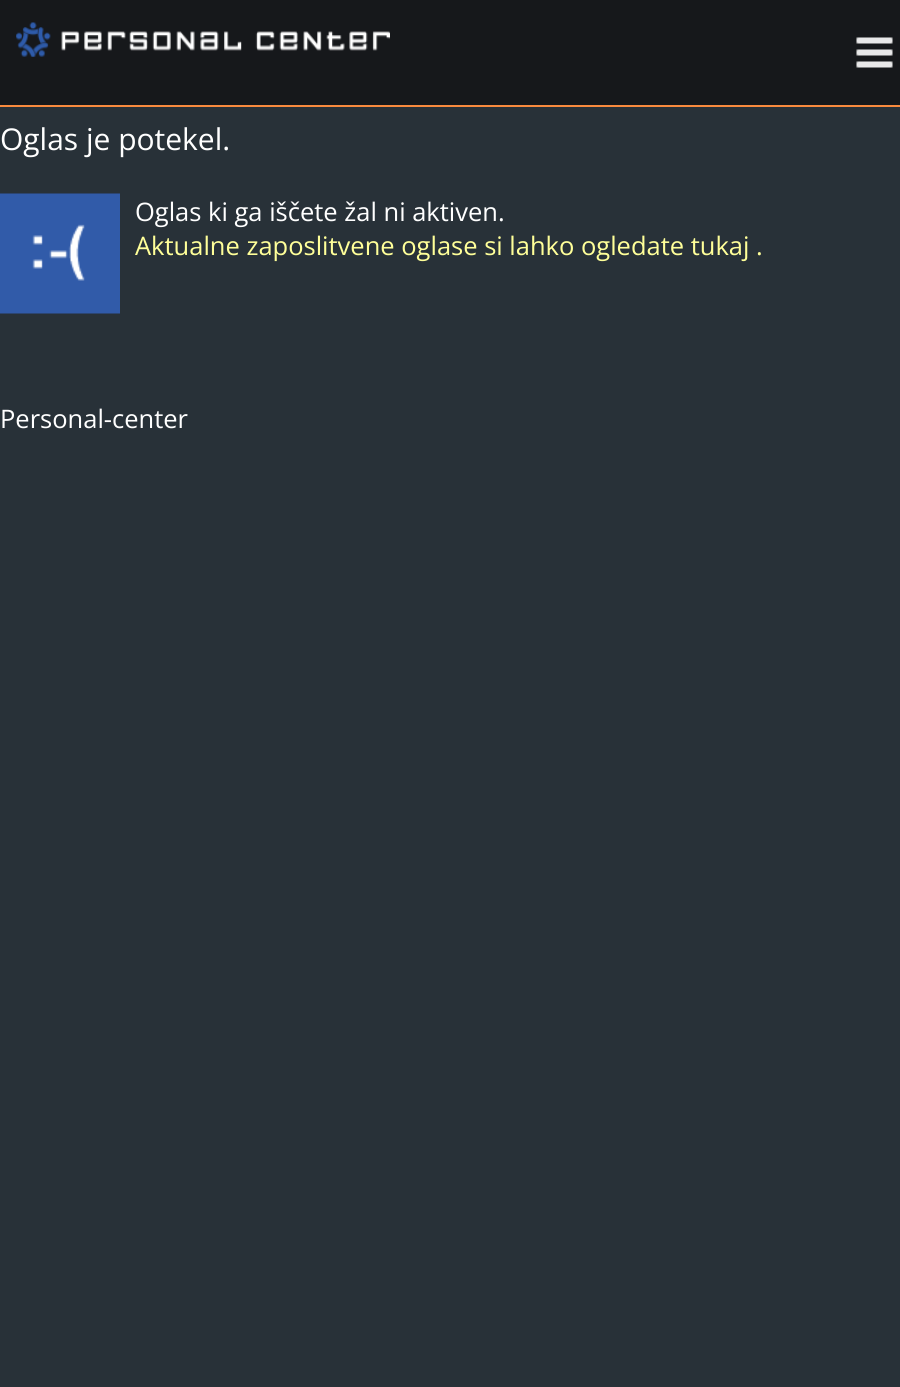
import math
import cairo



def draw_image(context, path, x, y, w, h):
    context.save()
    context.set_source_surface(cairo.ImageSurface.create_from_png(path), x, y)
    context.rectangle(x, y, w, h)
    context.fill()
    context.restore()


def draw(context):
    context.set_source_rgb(40 / 255, 49 / 255, 56 / 255)
    context.paint()
    context.set_source_rgb(22 / 255, 24 / 255, 27 / 255)
    context.rectangle(0, 0, 900, 105)
    context.fill()
    draw_image(context, "images/1.png", 16, 22, 374, 35)
    draw_image(context, "images/2.png", 856, 37, 37, 31)
    context.set_source_rgb(249 / 255, 138 / 255, 62 / 255)
    context.rectangle(0, 105, 900, 2)
    context.fill()
    draw_image(context, "images/3.png", 0, 193, 120, 121)
    context.select_font_face("Open Sans")
    context.set_font_size(30)
    context.set_source_rgb(1, 1, 1)
    context.move_to(0, 150)
    context.show_text("Oglas je potekel.")
    context.set_font_size(25.5)
    context.move_to(135, 221)
    context.show_text("Oglas ki ga iščete žal ni aktiven.")
    context.set_source_rgb(1, 1, 153 / 255)
    context.move_to(135, 255)
    context.show_text("Aktualne zaposlitvene oglase si lahko ogledate tukaj .")
    context.set_source_rgb(1, 1, 1)
    context.move_to(0, 428)
    context.show_text("Personal-center")


surface = cairo.ImageSurface(cairo.Format.RGB24, 900, 1387)
context = cairo.Context(surface)
options = cairo.FontOptions()
options.set_hint_metrics(cairo.HintMetrics.OFF)
options.set_hint_style(cairo.HintStyle.NONE)
context.set_font_options(options)
context.set_miter_limit(4)
draw(context)
surface.write_to_png("out.png")
